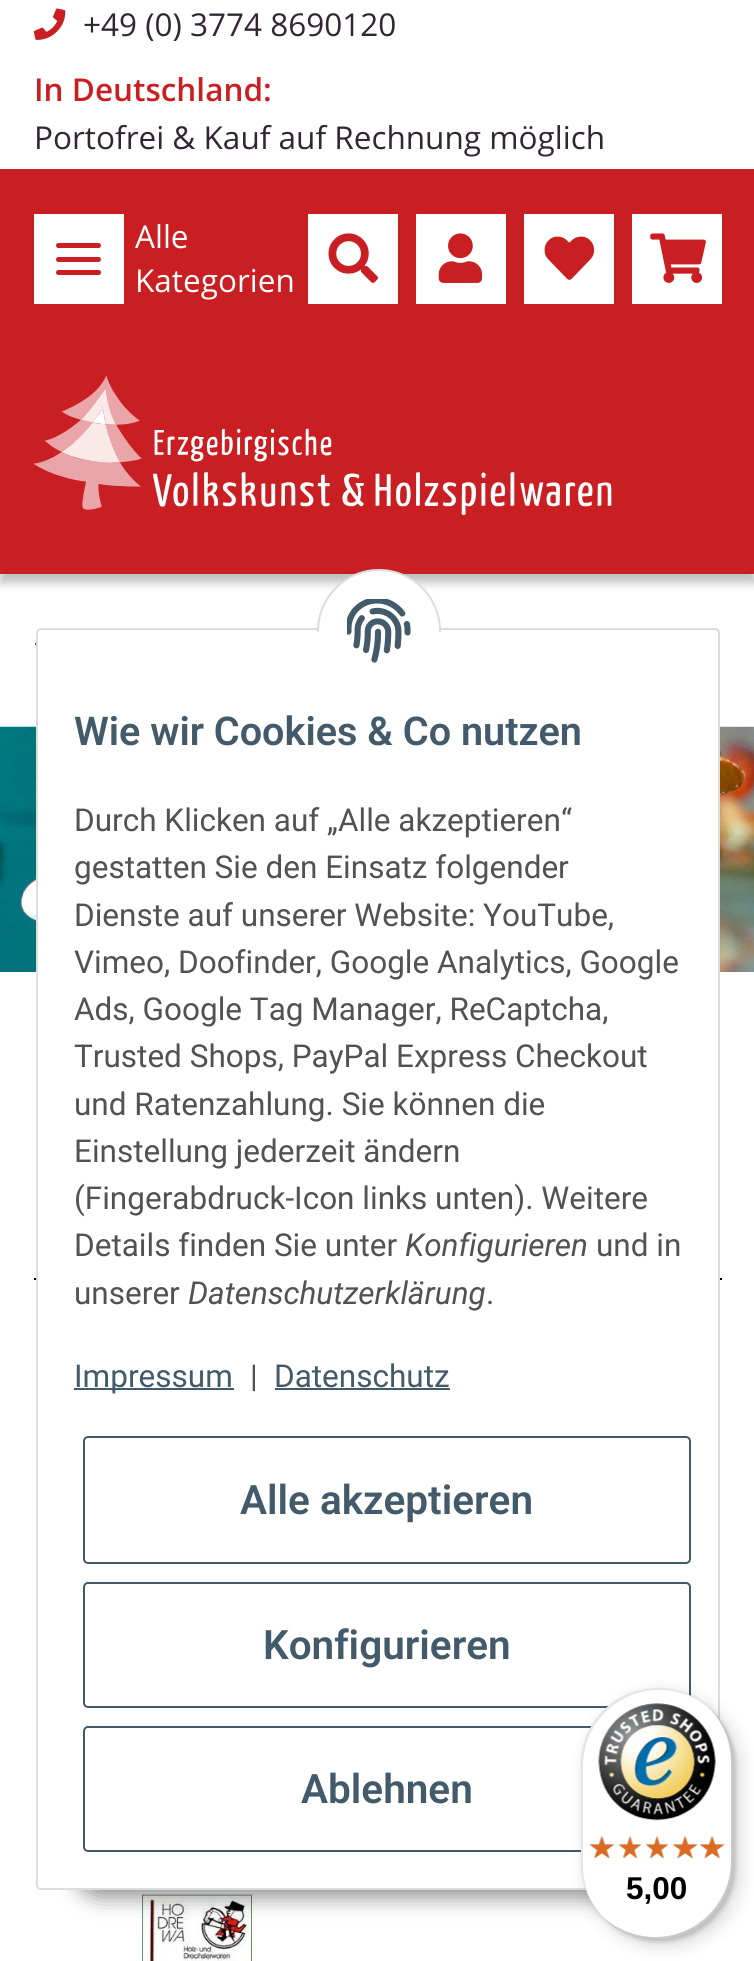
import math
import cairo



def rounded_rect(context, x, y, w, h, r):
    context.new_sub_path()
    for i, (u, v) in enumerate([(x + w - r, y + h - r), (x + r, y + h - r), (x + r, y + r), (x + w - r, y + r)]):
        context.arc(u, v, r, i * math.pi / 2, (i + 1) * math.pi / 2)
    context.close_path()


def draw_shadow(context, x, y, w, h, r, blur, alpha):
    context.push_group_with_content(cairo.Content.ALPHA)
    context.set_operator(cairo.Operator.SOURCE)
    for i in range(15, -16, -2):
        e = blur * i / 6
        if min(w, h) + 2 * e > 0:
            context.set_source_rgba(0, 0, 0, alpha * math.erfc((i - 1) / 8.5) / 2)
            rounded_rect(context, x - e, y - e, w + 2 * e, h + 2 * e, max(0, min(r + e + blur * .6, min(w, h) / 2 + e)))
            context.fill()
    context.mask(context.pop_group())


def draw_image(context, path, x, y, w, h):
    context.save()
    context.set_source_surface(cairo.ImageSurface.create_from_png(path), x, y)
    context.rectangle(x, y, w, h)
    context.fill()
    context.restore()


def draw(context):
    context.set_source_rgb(1, 1, 1)
    context.paint()
    draw_image(context, "images/1.png", 33, 8, 33, 32)
    context.set_source_rgb(0, 0, 0)
    draw_shadow(context, 0, 178, 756, 405, 0, 4.5, 0.25)
    context.set_source_rgb(201 / 255, 31 / 255, 34 / 255)
    context.rectangle(0, 169, 754, 405)
    context.fill()
    context.set_source_rgb(1, 1, 1)
    context.rectangle(34, 214, 90, 90)
    context.fill()
    context.set_source_rgb(201 / 255, 31 / 255, 34 / 255)
    rounded_rect(context, 56, 257, 45, 5, 2.5)
    context.fill()
    rounded_rect(context, 56, 243, 45, 5, 2.5)
    context.fill()
    rounded_rect(context, 56, 270, 45, 5, 2.5)
    context.fill()
    context.set_source_rgb(1, 1, 1)
    context.rectangle(308, 214, 90, 90)
    context.fill()
    draw_image(context, "images/2.png", 328, 233, 50, 50)
    context.rectangle(416, 214, 90, 90)
    context.fill()
    draw_image(context, "images/3.png", 438, 233, 45, 50)
    context.rectangle(524, 214, 90, 90)
    context.fill()
    draw_image(context, "images/4.png", 544, 236, 51, 44)
    context.rectangle(632, 214, 90, 90)
    context.fill()
    draw_image(context, "images/5.png", 650, 233, 56, 50)
    draw_image(context, "images/6.png", 34, 376, 578, 139)
    draw_image(context, "images/7.png", 35, 642, 1, 4)
    draw_image(context, "images/8.png", 0, 726, 754, 246)
    context.set_source_rgb(0, 0, 0)
    context.rectangle(34, 1278, 2, 2)
    context.fill()
    context.rectangle(720, 1278, 2, 2)
    context.fill()
    draw_image(context, "images/9.png", 141, 1894, 112, 67)
    context.set_source_rgb(0, 0, 0)
    draw_shadow(context, 72, 1825, 612, 72, 36, 11, 0.45)
    context.set_source_rgb(1, 1, 1)
    rounded_rect(context, 37, 629, 682, 1260, 4)
    context.fill_preserve()
    context.set_source_rgb(221 / 255, 221 / 255, 221 / 255)
    context.stroke()
    context.set_source_rgb(1, 1, 1)
    context.arc(379, 631, 61, 0, 2 * math.pi)
    context.fill_preserve()
    context.set_source_rgb(221 / 255, 221 / 255, 221 / 255)
    context.stroke()
    context.set_source_rgb(1, 1, 1)
    context.rectangle(317, 632, 124, 61)
    context.fill()
    draw_image(context, "images/10.png", 347, 599, 64, 64)
    context.set_source_rgb(67 / 255, 90 / 255, 107 / 255)
    context.rectangle(74, 1388, 160, 2)
    context.fill()
    context.rectangle(275, 1388, 175, 2)
    context.fill()
    rounded_rect(context, 84, 1437, 606, 126, 4)
    context.stroke()
    rounded_rect(context, 84, 1583, 606, 124, 4)
    context.stroke()
    rounded_rect(context, 84, 1727, 606, 124, 4)
    context.stroke()
    context.set_source_rgb(0, 0, 0)
    draw_shadow(context, 587, 1694, 153, 252, 76.5, 9, 0.15)
    draw_shadow(context, 583, 1690, 153, 252, 76.5, 2, 0.15)
    context.set_source_rgb(1, 1, 1)
    rounded_rect(context, 581, 1688, 153, 252, 76.5)
    context.fill()
    context.set_source_rgba(0, 0, 0, 0.1)
    context.new_path()
    context.move_to(659, 1690)
    context.curve_to(681, 1690, 701, 1699, 715, 1714)
    context.curve_to(701, 1698, 680, 1688, 658, 1688)
    context.curve_to(615, 1688, 581, 1722, 581, 1764)
    context.line_to(581, 1864)
    context.curve_to(581, 1886, 591, 1907, 607, 1921)
    context.curve_to(592, 1907, 583, 1887, 583, 1865)
    context.line_to(583, 1766)
    context.curve_to(583, 1724, 617, 1690, 659, 1690)
    context.close_path()
    context.fill()
    context.set_source_rgba(0, 0, 0, 0.2)
    context.new_path()
    context.move_to(600, 1914)
    context.curve_to(614, 1930, 635, 1940, 658, 1940)
    context.curve_to(700, 1940, 734, 1906, 734, 1864)
    context.line_to(734, 1764)
    context.curve_to(734, 1742, 724, 1721, 708, 1707)
    context.curve_to(722, 1721, 731, 1741, 731, 1762)
    context.line_to(731, 1861)
    context.curve_to(731, 1903, 697, 1937, 655, 1937)
    context.curve_to(634, 1937, 614, 1928, 600, 1914)
    context.close_path()
    context.fill()
    context.set_source_rgba(50 / 255, 50 / 255, 50 / 255, 0.2)
    context.new_path()
    context.move_to(605, 1919)
    context.curve_to(618, 1932, 637, 1940, 658, 1940)
    context.curve_to(700, 1940, 734, 1906, 734, 1864)
    context.line_to(734, 1764)
    context.curve_to(734, 1744, 726, 1725, 713, 1712)
    context.curve_to(725, 1725, 732, 1743, 732, 1763)
    context.line_to(732, 1862)
    context.curve_to(732, 1904, 698, 1938, 656, 1938)
    context.curve_to(636, 1938, 618, 1931, 605, 1919)
    context.close_path()
    context.fill()
    context.set_source_rgba(1, 1, 1, 0.3)
    context.new_path()
    context.move_to(600, 1914)
    context.curve_to(614, 1930, 635, 1940, 658, 1940)
    context.curve_to(700, 1940, 734, 1906, 734, 1864)
    context.line_to(734, 1764)
    context.curve_to(734, 1742, 724, 1721, 708, 1707)
    context.curve_to(723, 1721, 732, 1741, 732, 1763)
    context.line_to(732, 1862)
    context.curve_to(732, 1904, 698, 1938, 656, 1938)
    context.curve_to(634, 1938, 614, 1929, 600, 1914)
    context.close_path()
    context.fill()
    draw_image(context, "images/11.png", 598, 1703, 118, 118)
    draw_image(context, "images/12.png", 589, 1836, 25, 23)
    draw_image(context, "images/13.png", 619, 1836, 22, 22)
    draw_image(context, "images/14.png", 646, 1836, 22, 23)
    draw_image(context, "images/15.png", 673, 1836, 25, 22)
    draw_image(context, "images/16.png", 700, 1836, 25, 23)
    draw_image(context, "images/17.png", 589, 1836, 26, 22)
    draw_image(context, "images/18.png", 618, 1836, 24, 22)
    draw_image(context, "images/19.png", 645, 1836, 24, 22)
    draw_image(context, "images/20.png", 672, 1836, 26, 22)
    draw_image(context, "images/21.png", 699, 1836, 26, 22)
    context.select_font_face("Open Sans")
    context.set_font_size(31.5)
    context.set_source_rgb(48 / 255, 39 / 255, 51 / 255)
    context.move_to(83, 36)
    context.show_text("+49 (0) 3774 8690120")
    context.select_font_face("Open Sans SemiBold")
    context.set_source_rgb(201 / 255, 31 / 255, 34 / 255)
    context.move_to(34, 101)
    context.show_text("In Deutschland:")
    context.select_font_face("Open Sans")
    context.set_source_rgb(48 / 255, 39 / 255, 51 / 255)
    context.move_to(34, 149)
    context.show_text("Portofrei & Kauf auf Rechnung möglich")
    context.set_source_rgb(1, 1, 1)
    context.move_to(135, 248)
    context.show_text("Alle")
    context.move_to(135, 292)
    context.show_text("Kategorien")
    context.select_font_face("Roboto SemiBold")
    context.set_font_size(39.6)
    context.set_source_rgb(67 / 255, 90 / 255, 107 / 255)
    context.move_to(74, 745)
    context.show_text("Wie wir Cookies & Co nutzen")
    context.select_font_face("Roboto")
    context.set_font_size(31.5)
    context.set_source_rgb(82 / 255, 82 / 255, 82 / 255)
    context.move_to(74, 831)
    context.show_text("Durch Klicken auf „Alle akzeptieren“")
    context.move_to(74, 878)
    context.show_text("gestatten Sie den Einsatz folgender")
    context.move_to(74, 926)
    context.show_text("Dienste auf unserer Website: YouTube,")
    context.move_to(74, 973)
    context.show_text("Vimeo, Doofinder, Google Analytics, Google")
    context.move_to(74, 1020)
    context.show_text("Ads, Google Tag Manager, ReCaptcha,")
    context.move_to(74, 1067)
    context.show_text("Trusted Shops, PayPal Express Checkout")
    context.move_to(74, 1115)
    context.show_text("und Ratenzahlung. Sie können die")
    context.move_to(74, 1162)
    context.show_text("Einstellung jederzeit ändern")
    context.move_to(74, 1209)
    context.show_text("(Fingerabdruck-Icon links unten). Weitere")
    context.move_to(74, 1256)
    context.show_text("Details finden Sie unter")
    context.select_font_face("Roboto", cairo.FontSlant.ITALIC)
    context.move_to(405, 1256)
    context.show_text("Konfigurieren")
    context.select_font_face("Roboto")
    context.move_to(596, 1256)
    context.show_text("und in")
    context.move_to(74, 1304)
    context.show_text("unserer")
    context.select_font_face("Roboto", cairo.FontSlant.ITALIC)
    context.move_to(188, 1304)
    context.show_text("Datenschutzerklärung")
    context.select_font_face("Roboto")
    context.move_to(486, 1304)
    context.show_text(".")
    context.set_source_rgb(67 / 255, 90 / 255, 107 / 255)
    context.move_to(74, 1387)
    context.show_text("Impressum")
    context.set_source_rgb(82 / 255, 82 / 255, 82 / 255)
    context.move_to(250, 1387)
    context.show_text("|")
    context.set_source_rgb(67 / 255, 90 / 255, 107 / 255)
    context.move_to(274, 1387)
    context.show_text("Datenschutz")
    context.select_font_face("Roboto SemiBold")
    context.set_font_size(40.5)
    context.move_to(240, 1514)
    context.show_text("Alle akzeptieren")
    context.move_to(263, 1659)
    context.show_text("Konfigurieren")
    context.move_to(301, 1803)
    context.show_text("Ablehnen")
    context.select_font_face("Liberation Sans", cairo.FontSlant.NORMAL, cairo.FontWeight.BOLD)
    context.set_font_size(31.5)
    context.set_source_rgb(0, 0, 0)
    context.move_to(626, 1899)
    context.show_text("5,00")


surface = cairo.ImageSurface(cairo.Format.RGB24, 754, 1961)
context = cairo.Context(surface)
options = cairo.FontOptions()
options.set_hint_metrics(cairo.HintMetrics.OFF)
options.set_hint_style(cairo.HintStyle.NONE)
context.set_font_options(options)
context.set_miter_limit(4)
draw(context)
surface.write_to_png("out.png")
